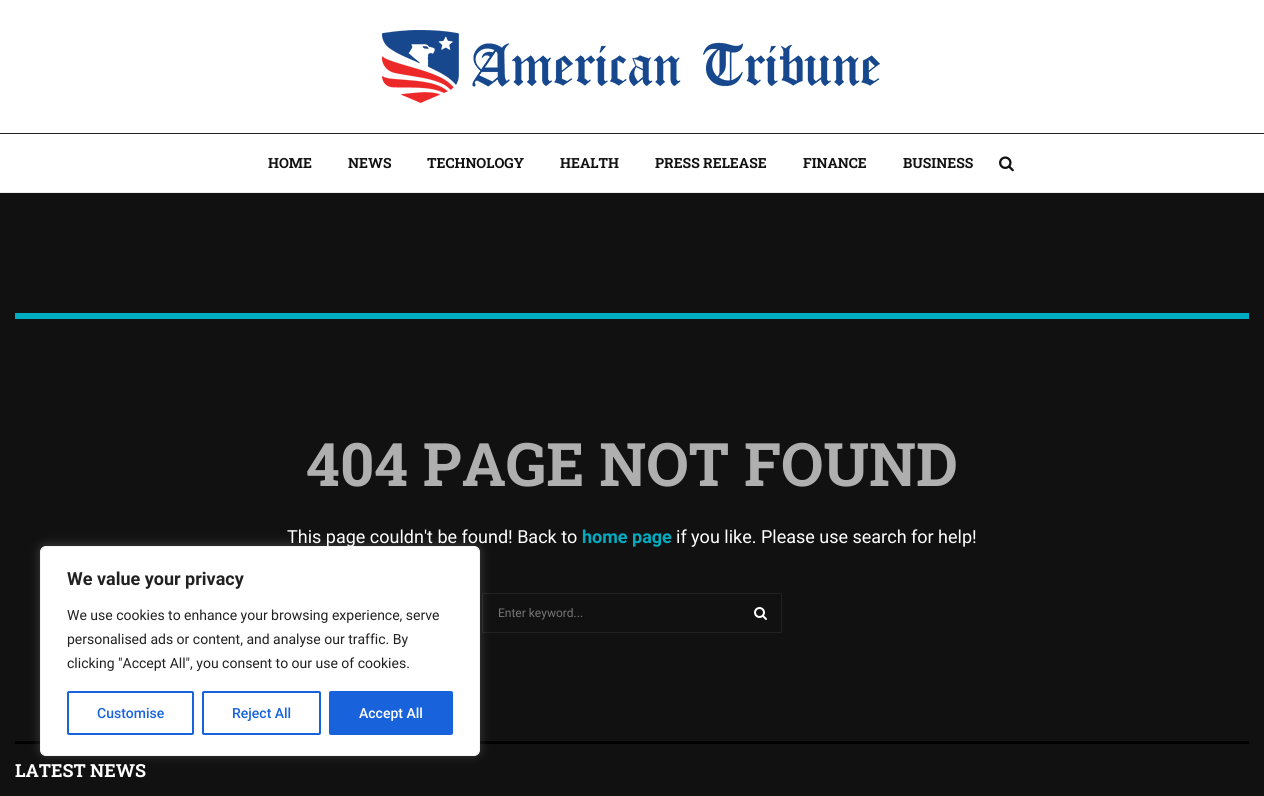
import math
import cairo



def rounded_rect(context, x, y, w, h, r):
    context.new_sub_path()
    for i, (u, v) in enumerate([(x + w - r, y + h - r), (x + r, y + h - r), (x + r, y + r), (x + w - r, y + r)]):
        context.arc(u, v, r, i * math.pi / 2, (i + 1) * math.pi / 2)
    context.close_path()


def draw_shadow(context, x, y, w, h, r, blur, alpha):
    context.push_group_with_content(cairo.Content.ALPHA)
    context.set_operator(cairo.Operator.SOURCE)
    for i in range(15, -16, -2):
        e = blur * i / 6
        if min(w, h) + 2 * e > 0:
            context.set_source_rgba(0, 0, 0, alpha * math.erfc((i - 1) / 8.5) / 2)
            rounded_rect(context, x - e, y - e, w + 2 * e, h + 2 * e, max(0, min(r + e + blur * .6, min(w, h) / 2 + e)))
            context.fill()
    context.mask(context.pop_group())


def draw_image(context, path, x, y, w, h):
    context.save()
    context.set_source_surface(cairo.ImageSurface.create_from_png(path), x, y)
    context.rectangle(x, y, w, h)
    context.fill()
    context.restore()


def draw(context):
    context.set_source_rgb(17 / 255, 17 / 255, 17 / 255)
    context.paint()
    context.set_source_rgb(1, 1, 1)
    context.rectangle(0, 0, 1264, 133)
    context.fill()
    draw_image(context, "images/1.png", 382, 30, 498, 73)
    context.rectangle(0, 134, 1264, 58)
    context.fill()
    context.set_source_rgb(236 / 255, 236 / 255, 236 / 255)
    context.rectangle(0, 192, 1264, 1)
    context.fill()
    context.set_source_rgb(33 / 255, 33 / 255, 33 / 255)
    context.rectangle(0, 133, 1264, 1)
    context.fill()
    draw_image(context, "images/2.png", 999, 156, 15, 16)
    context.set_source_rgb(0, 172 / 255, 193 / 255)
    context.rectangle(15, 313, 1234, 6)
    context.fill()
    context.rectangle(482.5, 593.5, 299, 39)
    context.set_source_rgb(33 / 255, 33 / 255, 33 / 255)
    context.set_line_width(1)
    context.stroke()
    draw_image(context, "images/3.png", 754, 607, 13, 13)
    context.set_source_rgb(0, 0, 0)
    context.rectangle(15, 741, 1234, 3)
    context.fill()
    context.set_source_rgb(172 / 255, 171 / 255, 171 / 255)
    draw_shadow(context, 40, 545, 440, 210, 6, 5, 0.3)
    context.set_source_rgb(1, 1, 1)
    rounded_rect(context, 40.5, 546.5, 439, 209, 5.5)
    context.fill_preserve()
    context.set_source_rgb(244 / 255, 244 / 255, 244 / 255)
    context.stroke()
    rounded_rect(context, 68, 692, 125, 42, 1)
    context.set_source_rgb(24 / 255, 99 / 255, 220 / 255)
    context.set_line_width(2)
    context.stroke()
    rounded_rect(context, 203, 692, 117, 42, 1)
    context.stroke()
    rounded_rect(context, 330, 692, 122, 42, 1)
    context.fill_preserve()
    context.stroke()
    context.select_font_face("Roboto Slab", cairo.FontSlant.NORMAL, cairo.FontWeight.BOLD)
    context.set_font_size(14)
    context.set_source_rgb(17 / 255, 17 / 255, 17 / 255)
    context.move_to(268, 168)
    context.show_text("HOME")
    context.move_to(348, 168)
    context.show_text("NEWS")
    context.move_to(427, 168)
    context.show_text("TECHNOLOGY")
    context.move_to(560, 168)
    context.show_text("HEALTH")
    context.move_to(655, 168)
    context.show_text("PRESS RELEASE")
    context.move_to(803, 168)
    context.show_text("FINANCE")
    context.move_to(903, 168)
    context.show_text("BUSINESS")
    context.set_font_size(60)
    context.set_source_rgb(175 / 255, 175 / 255, 175 / 255)
    context.move_to(306, 486)
    context.show_text("404 PAGE NOT FOUND")
    context.select_font_face("Roboto")
    context.set_font_size(18)
    context.set_source_rgb(1, 1, 1)
    context.move_to(287, 543)
    context.show_text("This page couldn't be found! Back to")
    context.select_font_face("Roboto", cairo.FontSlant.NORMAL, cairo.FontWeight.BOLD)
    context.set_source_rgb(0, 172 / 255, 193 / 255)
    context.move_to(582, 543)
    context.show_text("home page")
    context.select_font_face("Roboto")
    context.set_source_rgb(1, 1, 1)
    context.move_to(676, 543)
    context.show_text("if you like. Please use search for help!")
    context.set_font_size(12)
    context.set_source_rgb(117 / 255, 117 / 255, 117 / 255)
    context.move_to(498, 617)
    context.show_text("Enter keyword...")
    context.select_font_face("Roboto Slab", cairo.FontSlant.NORMAL, cairo.FontWeight.BOLD)
    context.set_font_size(18)
    context.set_source_rgb(1, 1, 1)
    context.move_to(15, 777)
    context.show_text("LATEST NEWS")
    context.select_font_face("Roboto", cairo.FontSlant.NORMAL, cairo.FontWeight.BOLD)
    context.set_source_rgb(33 / 255, 33 / 255, 33 / 255)
    context.move_to(67, 585)
    context.show_text("We value your privacy")
    context.select_font_face("Roboto")
    context.set_font_size(14)
    context.move_to(67, 620)
    context.show_text("We use cookies to enhance your browsing experience, serve")
    context.move_to(67, 644)
    context.show_text("personalised ads or content, and analyse our traffic. By")
    context.move_to(67, 668)
    context.show_text("clicking \"Accept All\", you consent to our use of cookies.")
    context.select_font_face("Roboto Medium")
    context.set_source_rgb(24 / 255, 99 / 255, 220 / 255)
    context.move_to(97, 718)
    context.show_text("Customise")
    context.move_to(232, 718)
    context.show_text("Reject All")
    context.set_source_rgb(1, 1, 1)
    context.move_to(359, 718)
    context.show_text("Accept All")


surface = cairo.ImageSurface(cairo.Format.RGB24, 1264, 796)
context = cairo.Context(surface)
options = cairo.FontOptions()
options.set_hint_metrics(cairo.HintMetrics.OFF)
options.set_hint_style(cairo.HintStyle.NONE)
context.set_font_options(options)
context.set_miter_limit(4)
draw(context)
surface.write_to_png("out.png")
